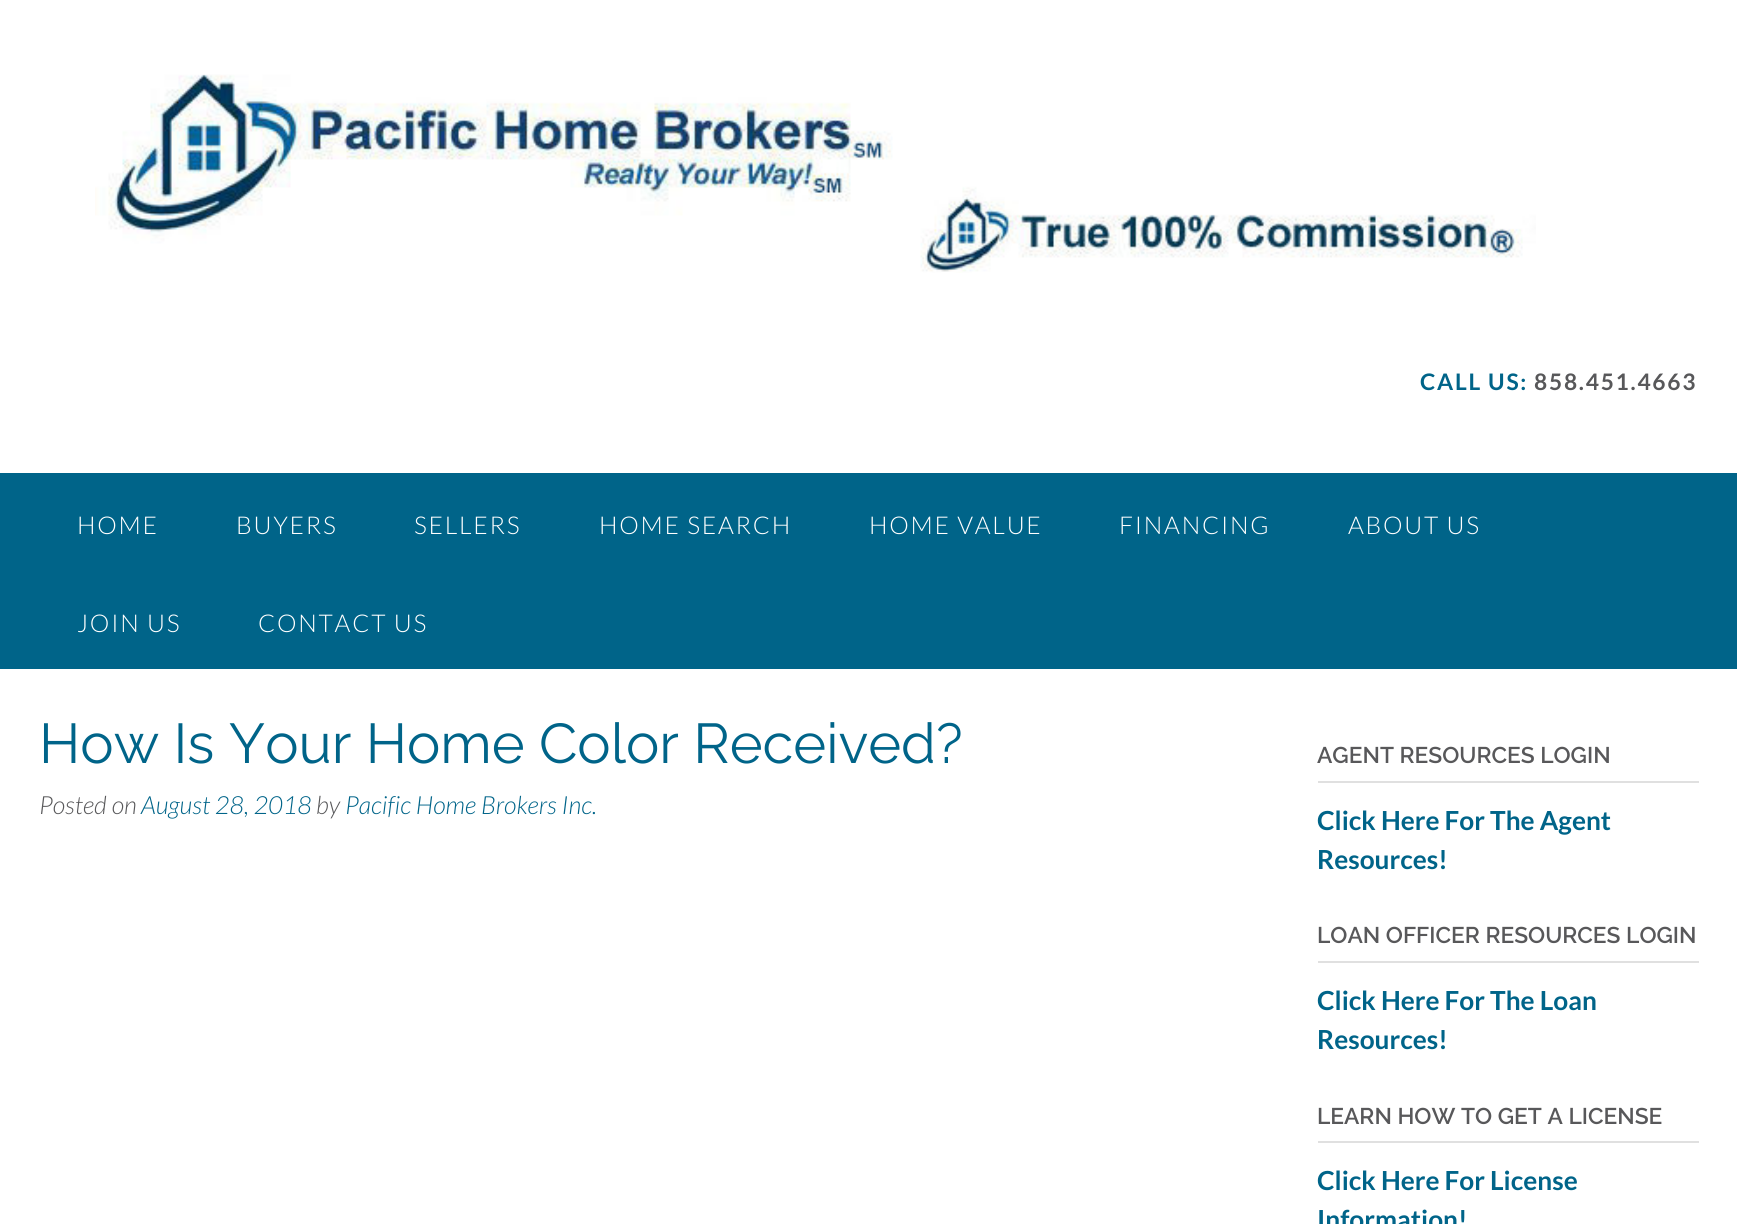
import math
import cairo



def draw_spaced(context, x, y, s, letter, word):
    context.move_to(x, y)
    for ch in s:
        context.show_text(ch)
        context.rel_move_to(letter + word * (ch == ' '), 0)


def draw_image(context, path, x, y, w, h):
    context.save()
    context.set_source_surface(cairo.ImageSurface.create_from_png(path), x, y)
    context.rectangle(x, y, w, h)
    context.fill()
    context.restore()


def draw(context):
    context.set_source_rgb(1, 1, 1)
    context.paint()
    draw_image(context, "images/1.png", 95, 74, 1441, 199)
    context.set_source_rgb(0, 100 / 255, 137 / 255)
    context.rectangle(0, 473, 1737, 196)
    context.fill()
    context.set_source_rgb(224 / 255, 224 / 255, 224 / 255)
    context.rectangle(1318, 781, 381, 2)
    context.fill()
    context.rectangle(1318, 961, 381, 2)
    context.fill()
    context.rectangle(1318, 1141, 381, 2)
    context.fill()
    context.select_font_face("Lato", cairo.FontSlant.NORMAL, cairo.FontWeight.BOLD)
    context.set_font_size(22.75)
    context.set_source_rgb(0, 100 / 255, 137 / 255)
    draw_spaced(context, 1420, 390, "CALL US:", 1.75, 0)
    context.set_source_rgb(88 / 255, 88 / 255, 90 / 255)
    draw_spaced(context, 1534, 390, "858.451.4663", 1.75, 0)
    context.select_font_face("Lato Light")
    context.set_font_size(24.5)
    context.set_source_rgb(1, 1, 1)
    draw_spaced(context, 77, 534, "HOME", 1.75, 0)
    draw_spaced(context, 236, 534, "BUYERS", 1.75, 0)
    draw_spaced(context, 414, 534, "SELLERS", 1.75, 0)
    draw_spaced(context, 599, 534, "HOME SEARCH", 1.75, 0)
    draw_spaced(context, 869, 534, "HOME VALUE", 1.75, 0)
    draw_spaced(context, 1119, 534, "FINANCING", 1.75, 0)
    draw_spaced(context, 1348, 534, "ABOUT US", 1.75, 0)
    draw_spaced(context, 77, 632, "JOIN US", 1.75, 0)
    draw_spaced(context, 258, 632, "CONTACT US", 1.75, 0)
    context.select_font_face("Raleway")
    context.set_font_size(56)
    context.set_source_rgb(0, 100 / 255, 137 / 255)
    context.move_to(39, 763)
    context.show_text("How Is Your Home Color Received?")
    context.select_font_face("Lato Light", cairo.FontSlant.ITALIC)
    context.set_font_size(25)
    context.set_source_rgb(88 / 255, 88 / 255, 90 / 255)
    context.move_to(39, 814)
    context.show_text("Posted on")
    context.set_source_rgb(0, 100 / 255, 137 / 255)
    context.move_to(141, 814)
    context.show_text("August 28, 2018")
    context.set_source_rgb(88 / 255, 88 / 255, 90 / 255)
    context.move_to(316, 814)
    context.show_text("by")
    context.set_source_rgb(0, 100 / 255, 137 / 255)
    context.move_to(345, 814)
    context.show_text("Pacific Home Brokers Inc.")
    context.select_font_face("Raleway SemiBold")
    context.set_font_size(22.75)
    context.set_source_rgb(88 / 255, 88 / 255, 90 / 255)
    context.move_to(1317, 763)
    context.show_text("AGENT RESOURCES LOGIN")
    context.select_font_face("Lato", cairo.FontSlant.NORMAL, cairo.FontWeight.BOLD)
    context.set_font_size(26.25)
    context.set_source_rgb(0, 100 / 255, 137 / 255)
    context.move_to(1317, 830)
    context.show_text("Click Here For The Agent")
    context.move_to(1317, 869)
    context.show_text("Resources!")
    context.select_font_face("Raleway SemiBold")
    context.set_font_size(22.75)
    context.set_source_rgb(88 / 255, 88 / 255, 90 / 255)
    context.move_to(1317, 943)
    context.show_text("LOAN OFFICER RESOURCES LOGIN")
    context.select_font_face("Lato", cairo.FontSlant.NORMAL, cairo.FontWeight.BOLD)
    context.set_font_size(26.25)
    context.set_source_rgb(0, 100 / 255, 137 / 255)
    context.move_to(1317, 1010)
    context.show_text("Click Here For The Loan")
    context.move_to(1317, 1049)
    context.show_text("Resources!")
    context.select_font_face("Raleway SemiBold")
    context.set_font_size(22.75)
    context.set_source_rgb(88 / 255, 88 / 255, 90 / 255)
    context.move_to(1317, 1124)
    context.show_text("LEARN HOW TO GET A LICENSE")
    context.select_font_face("Lato", cairo.FontSlant.NORMAL, cairo.FontWeight.BOLD)
    context.set_font_size(26.25)
    context.set_source_rgb(0, 100 / 255, 137 / 255)
    context.move_to(1317, 1190)
    context.show_text("Click Here For License")
    context.move_to(1317, 1229)
    context.show_text("Information!")


surface = cairo.ImageSurface(cairo.Format.RGB24, 1737, 1224)
context = cairo.Context(surface)
options = cairo.FontOptions()
options.set_hint_metrics(cairo.HintMetrics.OFF)
options.set_hint_style(cairo.HintStyle.NONE)
context.set_font_options(options)
context.set_miter_limit(4)
draw(context)
surface.write_to_png("out.png")
